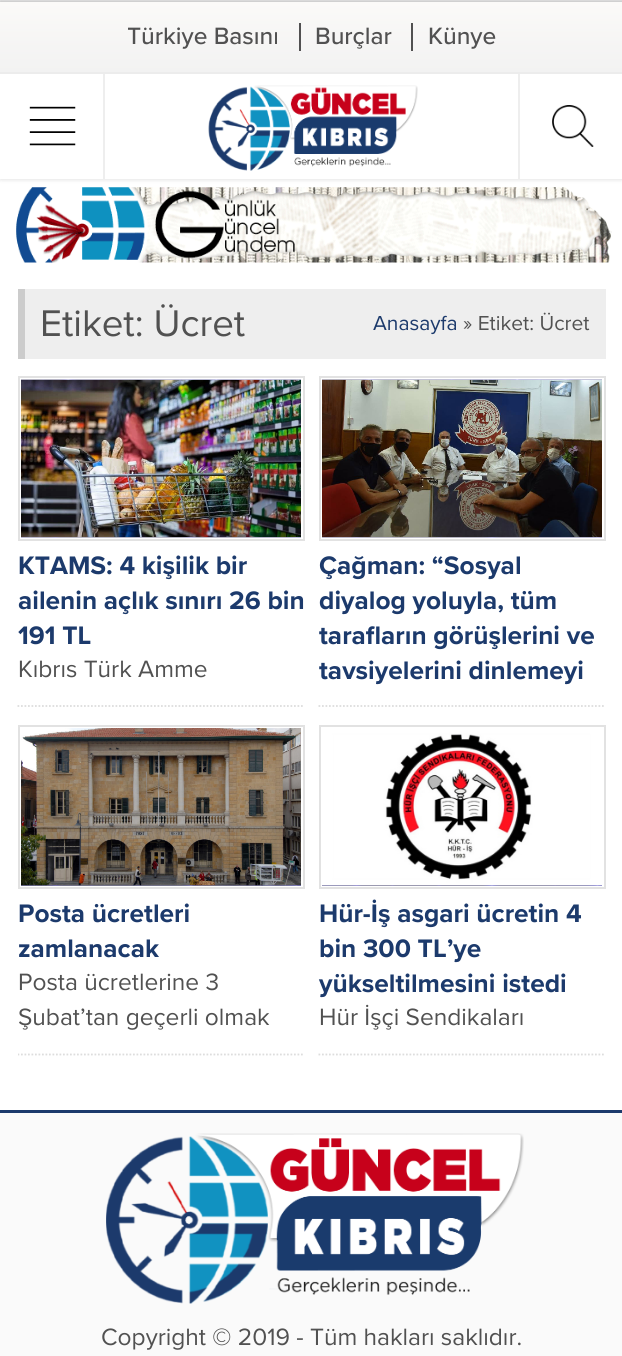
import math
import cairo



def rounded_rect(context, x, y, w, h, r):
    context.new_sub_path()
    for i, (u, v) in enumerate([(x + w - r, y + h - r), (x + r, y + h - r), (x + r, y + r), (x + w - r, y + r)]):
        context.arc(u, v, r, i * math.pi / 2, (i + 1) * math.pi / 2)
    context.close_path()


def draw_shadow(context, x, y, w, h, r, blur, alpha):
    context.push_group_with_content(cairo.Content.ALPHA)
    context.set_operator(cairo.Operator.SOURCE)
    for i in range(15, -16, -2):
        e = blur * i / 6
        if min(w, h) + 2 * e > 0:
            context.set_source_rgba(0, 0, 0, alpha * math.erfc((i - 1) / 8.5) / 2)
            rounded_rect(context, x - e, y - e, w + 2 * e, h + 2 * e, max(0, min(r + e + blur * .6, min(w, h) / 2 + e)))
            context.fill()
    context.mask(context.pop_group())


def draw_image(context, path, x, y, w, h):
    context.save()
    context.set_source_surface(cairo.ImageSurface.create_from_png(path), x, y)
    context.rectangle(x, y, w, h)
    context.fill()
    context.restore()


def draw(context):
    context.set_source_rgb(238 / 255, 238 / 255, 238 / 255)
    context.paint()
    context.set_source_rgb(0, 0, 0)
    draw_shadow(context, 0, 2, 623, 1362, 0, 2.5, 0.3)
    context.set_source_rgb(1, 1, 1)
    context.rectangle(0, 74, 622, 1036)
    context.fill()
    gradient = cairo.LinearGradient(312, 1.7, 312, 72)
    gradient.add_color_stop_rgba(0, 251 / 255, 250 / 255, 248 / 255, 1)
    gradient.add_color_stop_rgba(1, 242 / 255, 242 / 255, 242 / 255, 1)
    context.set_source(gradient)
    context.rectangle(0, 2, 622, 70)
    context.fill()
    context.set_source_rgb(236 / 255, 236 / 255, 236 / 255)
    context.rectangle(0, 72, 622, 2)
    context.fill()
    context.set_source_rgb(81 / 255, 81 / 255, 81 / 255)
    context.rectangle(299, 23, 2, 28)
    context.fill()
    context.rectangle(411, 23, 2, 28)
    context.fill()
    draw_image(context, "images/4.png", 16, 187, 596, 76)
    context.save()
    context.rectangle(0, 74, 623, 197)
    context.clip()
    context.set_fill_rule(cairo.FillRule.EVEN_ODD)
    context.new_path()
    context.move_to(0, 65)
    context.line_to(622, 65)
    context.line_to(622, 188)
    context.line_to(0, 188)
    context.close_path()
    context.move_to(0, 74)
    context.line_to(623, 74)
    context.line_to(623, 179)
    context.line_to(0, 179)
    context.close_path()
    context.clip()
    context.set_source_rgb(0, 0, 0)
    draw_shadow(context, 0, 74, 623, 105, 0, 2.5, 0.15)
    context.restore()
    draw_image(context, "images/1.png", 208, 85, 210, 86)
    context.set_source_rgb(238 / 255, 238 / 255, 238 / 255)
    context.rectangle(103, 74, 2, 105)
    context.fill()
    draw_image(context, "images/2.png", 29, 106, 47, 40)
    context.rectangle(518, 74, 2, 105)
    context.fill()
    draw_image(context, "images/3.png", 552, 105, 42, 42)
    context.rectangle(25, 289, 581, 70)
    context.fill()
    context.set_source_rgb(204 / 255, 204 / 255, 204 / 255)
    context.rectangle(18, 289, 7, 70)
    context.fill()
    context.new_path()
    context.move_to(17.5, 706)
    context.line_to(304.5, 706)
    context.set_source_rgb(221 / 255, 221 / 255, 221 / 255)
    context.set_line_width(1.8)
    context.set_dash([1.75, 1.75])
    context.stroke()
    context.rectangle(19, 377, 285, 163)
    context.set_source_rgb(226 / 255, 226 / 255, 226 / 255)
    context.set_line_width(2)
    context.set_dash([])
    context.stroke()
    draw_image(context, "images/5.png", 21, 379, 280, 159)
    draw_image(context, "images/6.png", 21, 379, 280, 159)
    context.new_path()
    context.move_to(318.5, 706)
    context.line_to(605.5, 706)
    context.set_source_rgb(221 / 255, 221 / 255, 221 / 255)
    context.set_line_width(1.8)
    context.set_dash([1.75, 1.75])
    context.stroke()
    context.rectangle(320, 377, 285, 163)
    context.set_source_rgb(226 / 255, 226 / 255, 226 / 255)
    context.set_line_width(2)
    context.set_dash([])
    context.stroke()
    draw_image(context, "images/7.png", 322, 379, 280, 159)
    draw_image(context, "images/8.png", 322, 379, 280, 159)
    context.save()
    context.rectangle(18, 376, 588, 697)
    context.clip()
    context.new_path()
    context.move_to(17.5, 1054.5)
    context.line_to(304.5, 1054.5)
    context.set_source_rgb(221 / 255, 221 / 255, 221 / 255)
    context.set_line_width(1.8)
    context.set_dash([1.75, 1.75])
    context.stroke()
    context.restore()
    context.rectangle(19, 726, 285, 162)
    context.stroke()
    context.set_source_rgb(240 / 255, 240 / 255, 240 / 255)
    context.rectangle(21, 885, 280, 1)
    context.fill()
    draw_image(context, "images/9.png", 21, 885, 280, 1)
    draw_image(context, "images/10.png", 21, 728, 280, 158)
    context.new_path()
    context.move_to(318.5, 1054.5)
    context.line_to(605.5, 1054.5)
    context.set_source_rgb(221 / 255, 221 / 255, 221 / 255)
    context.set_line_width(1.8)
    context.set_dash([1.75, 1.75])
    context.stroke()
    context.rectangle(320, 726, 285, 162)
    context.set_source_rgb(226 / 255, 226 / 255, 226 / 255)
    context.set_line_width(2)
    context.set_dash([])
    context.stroke()
    context.set_source_rgb(240 / 255, 240 / 255, 240 / 255)
    context.rectangle(322, 885, 280, 1)
    context.fill()
    draw_image(context, "images/9.png", 322, 885, 280, 1)
    draw_image(context, "images/11.png", 322, 728, 280, 158)
    context.set_source_rgb(28 / 255, 58 / 255, 108 / 255)
    context.rectangle(0, 1110, 622, 3)
    context.fill()
    context.set_source_rgb(250 / 255, 250 / 255, 250 / 255)
    context.rectangle(0, 1113, 622, 243)
    context.fill()
    draw_image(context, "images/12.png", 106, 1133, 418, 171)
    context.save()
    context.rectangle(128, 19, 367, 35)
    context.clip()
    context.select_font_face("Proxima Nova Medium")
    context.set_font_size(24.5)
    context.set_source_rgb(81 / 255, 81 / 255, 81 / 255)
    context.move_to(127, 44)
    context.show_text("Türkiye Basını")
    context.restore()
    context.select_font_face("Proxima Nova Medium")
    context.set_font_size(24.5)
    context.set_source_rgb(81 / 255, 81 / 255, 81 / 255)
    context.move_to(315, 44)
    context.show_text("Burçlar")
    context.move_to(428, 44)
    context.show_text("Künye")
    context.select_font_face("Proxima Nova")
    context.set_font_size(38.5)
    context.move_to(40, 336)
    context.show_text("Etiket: Ücret")
    context.set_font_size(21)
    context.set_source_rgb(28 / 255, 58 / 255, 108 / 255)
    context.move_to(373, 330)
    context.show_text("Anasayfa")
    context.set_source_rgb(81 / 255, 81 / 255, 81 / 255)
    context.move_to(463, 330)
    context.show_text("» Etiket: Ücret")
    context.select_font_face("Proxima Nova", cairo.FontSlant.NORMAL, cairo.FontWeight.BOLD)
    context.set_font_size(26.25)
    context.set_source_rgb(28 / 255, 58 / 255, 108 / 255)
    context.move_to(18, 574)
    context.show_text("KTAMS: 4 kişilik bir")
    context.move_to(18, 609)
    context.show_text("ailenin açlık sınırı 26 bin")
    context.move_to(18, 644)
    context.show_text("191 TL")
    context.select_font_face("Proxima Nova")
    context.set_font_size(24.5)
    context.set_source_rgb(81 / 255, 81 / 255, 81 / 255)
    context.move_to(18, 677)
    context.show_text("Kıbrıs Türk Amme")
    context.select_font_face("Proxima Nova", cairo.FontSlant.NORMAL, cairo.FontWeight.BOLD)
    context.set_font_size(26.25)
    context.set_source_rgb(28 / 255, 58 / 255, 108 / 255)
    context.move_to(319, 574)
    context.show_text("Çağman: “Sosyal")
    context.move_to(319, 609)
    context.show_text("diyalog yoluyla, tüm")
    context.save()
    context.rectangle(319, 548, 287, 140)
    context.clip()
    context.move_to(319, 644)
    context.show_text("tarafların görüşlerini ve")
    context.move_to(319, 679)
    context.show_text("tavsiyelerini dinlemeyi")
    context.restore()
    context.move_to(18, 922)
    context.show_text("Posta ücretleri")
    context.move_to(18, 957)
    context.show_text("zamlanacak")
    context.select_font_face("Proxima Nova")
    context.set_font_size(24.5)
    context.set_source_rgb(81 / 255, 81 / 255, 81 / 255)
    context.move_to(18, 990)
    context.show_text("Posta ücretlerine 3")
    context.move_to(18, 1025)
    context.show_text("Şubat’tan geçerli olmak")
    context.select_font_face("Proxima Nova", cairo.FontSlant.NORMAL, cairo.FontWeight.BOLD)
    context.set_font_size(26.25)
    context.set_source_rgb(28 / 255, 58 / 255, 108 / 255)
    context.move_to(319, 922)
    context.show_text("Hür-İş asgari ücretin 4")
    context.move_to(319, 957)
    context.show_text("bin 300 TL’ye")
    context.move_to(319, 992)
    context.show_text("yükseltilmesini istedi")
    context.select_font_face("Proxima Nova")
    context.set_font_size(24.5)
    context.set_source_rgb(81 / 255, 81 / 255, 81 / 255)
    context.move_to(319, 1025)
    context.show_text("Hür İşçi Sendikaları")
    context.move_to(101, 1345)
    context.show_text("Copyright © 2019 - Tüm hakları saklıdır.")


surface = cairo.ImageSurface(cairo.Format.RGB24, 622, 1356)
context = cairo.Context(surface)
options = cairo.FontOptions()
options.set_hint_metrics(cairo.HintMetrics.OFF)
options.set_hint_style(cairo.HintStyle.NONE)
context.set_font_options(options)
context.set_miter_limit(4)
draw(context)
surface.write_to_png("out.png")
